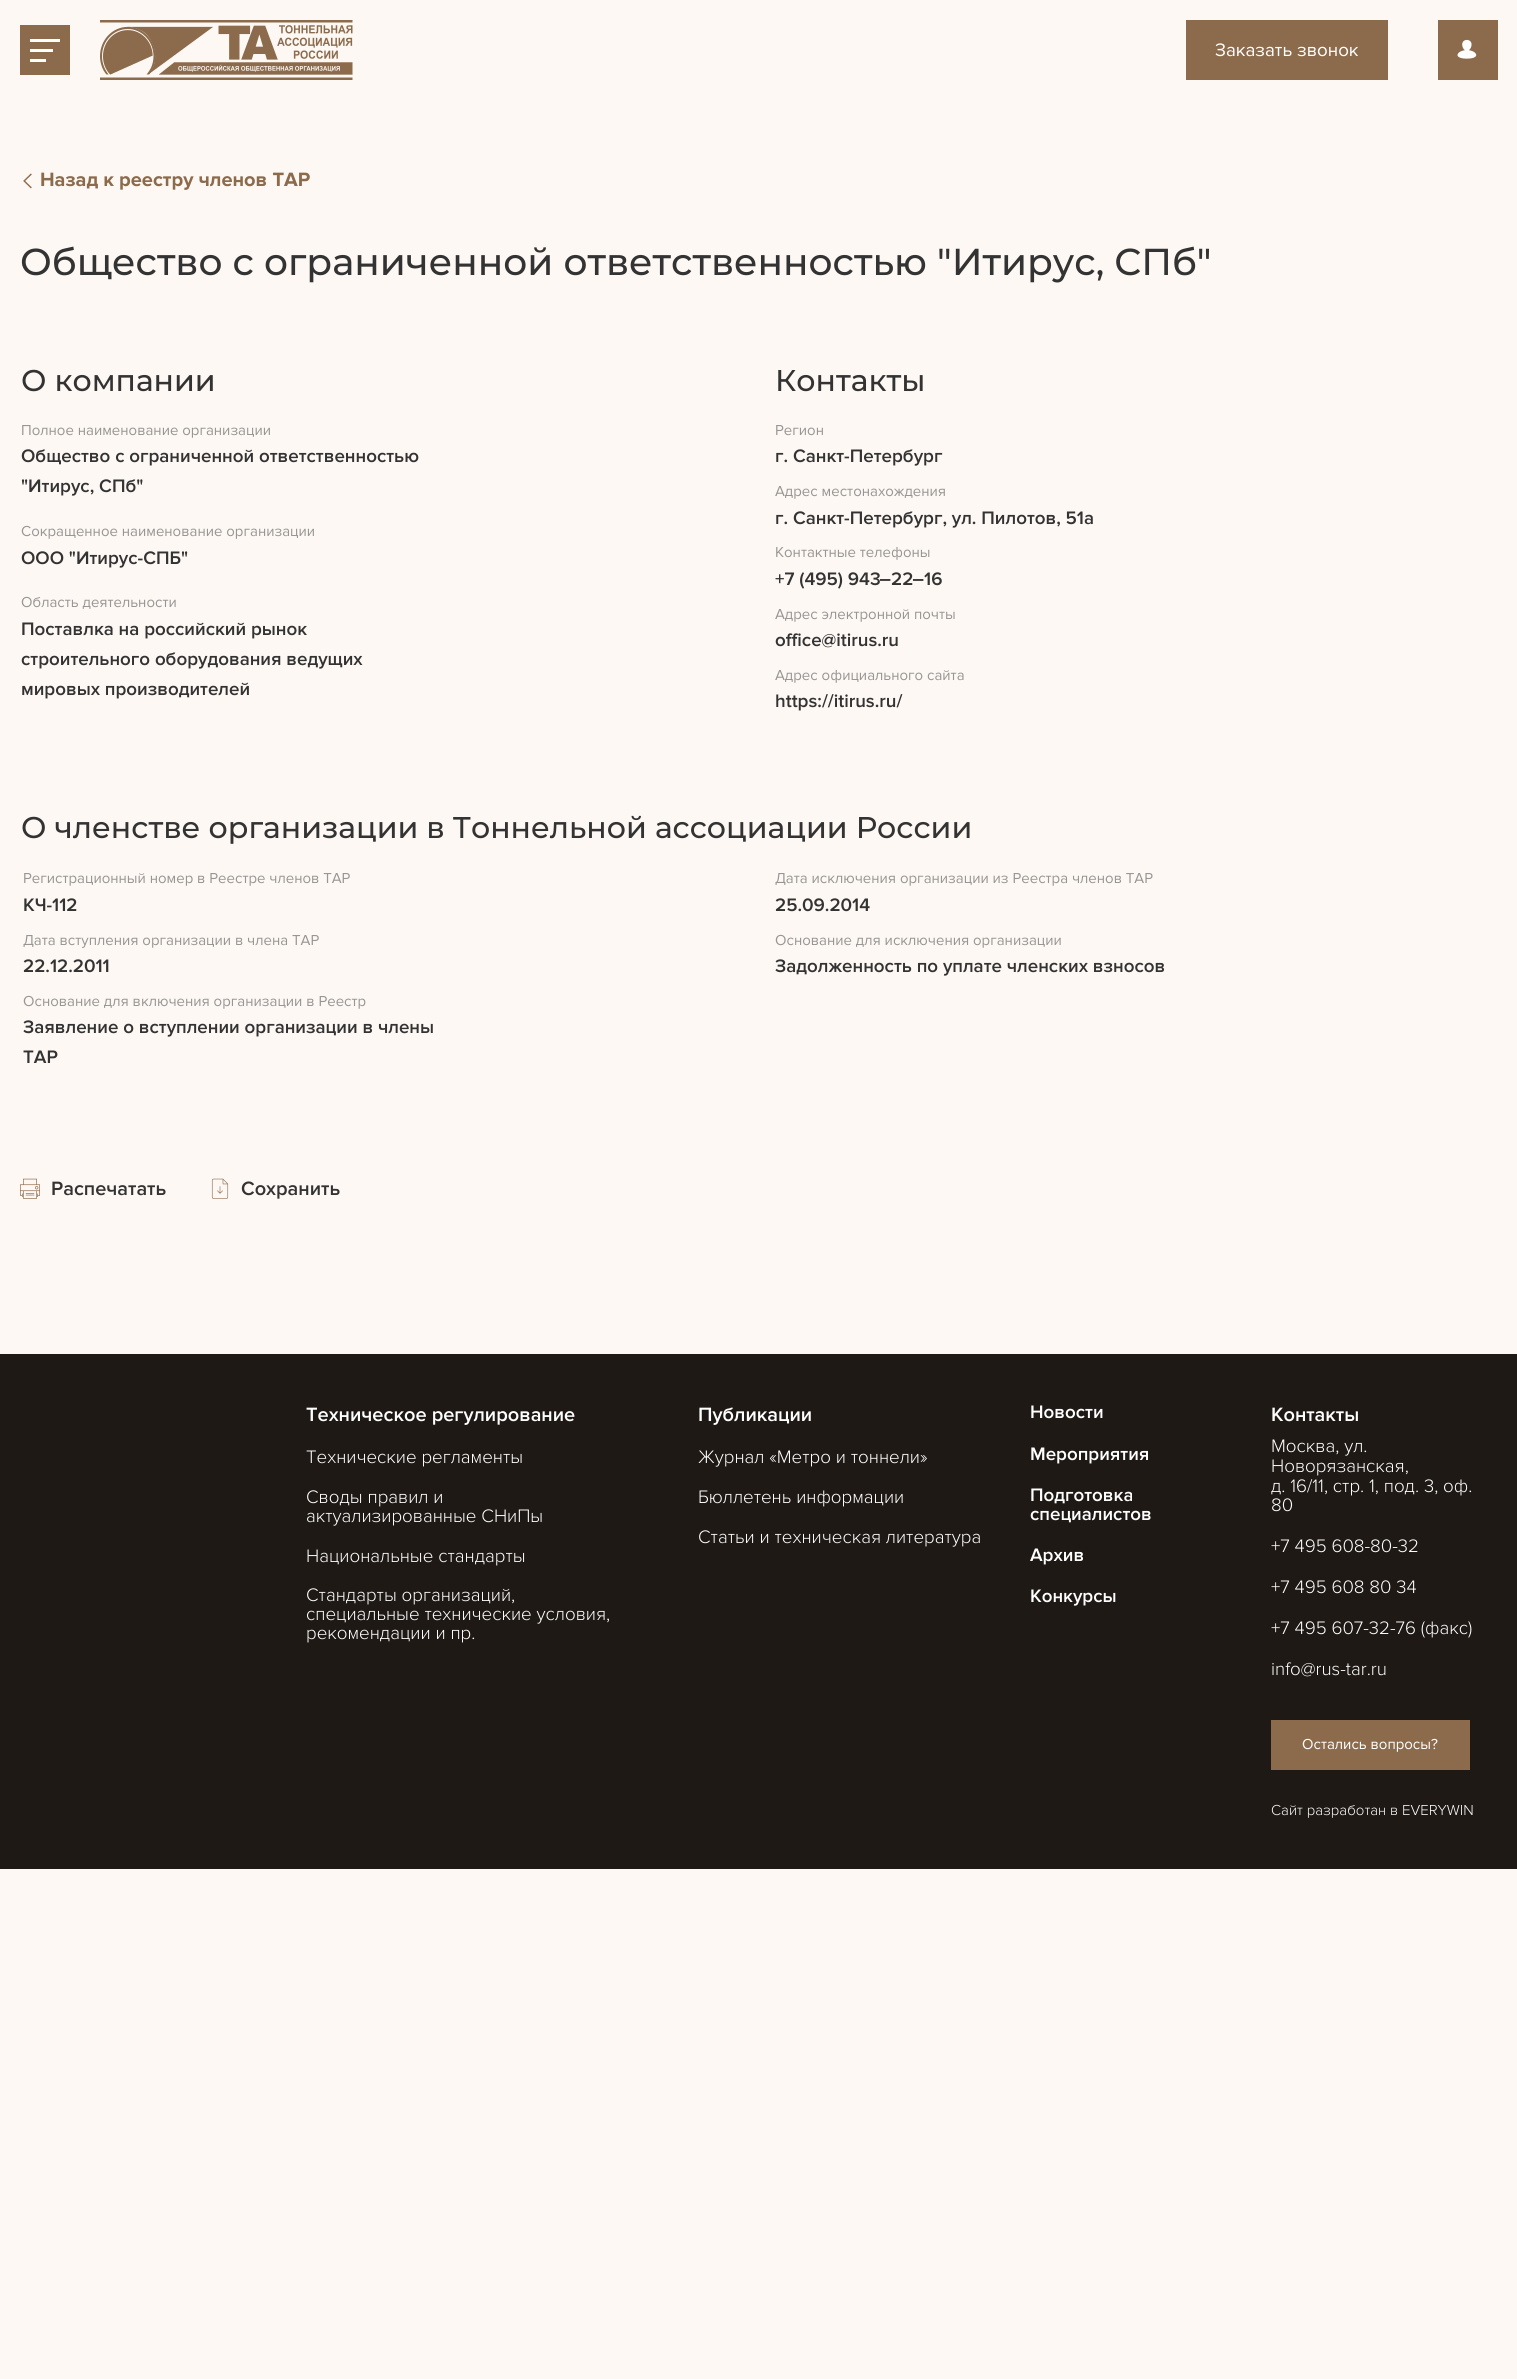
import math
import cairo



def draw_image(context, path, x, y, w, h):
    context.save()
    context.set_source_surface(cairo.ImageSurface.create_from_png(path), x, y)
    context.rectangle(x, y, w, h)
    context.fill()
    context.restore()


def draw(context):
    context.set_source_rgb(253 / 255, 248 / 255, 244 / 255)
    context.paint()
    context.set_source_rgb(140 / 255, 107 / 255, 76 / 255)
    context.rectangle(20, 25, 50, 50)
    context.fill()
    context.set_source_rgb(1, 1, 1)
    context.rectangle(30, 39, 30, 3)
    context.fill()
    context.rectangle(30, 49, 23, 3)
    context.fill()
    context.rectangle(30, 59, 16, 3)
    context.fill()
    draw_image(context, "images/1.png", 100, 20, 253, 60)
    context.set_source_rgb(140 / 255, 107 / 255, 76 / 255)
    context.rectangle(1186, 20, 202, 60)
    context.fill()
    context.rectangle(1438, 20, 60, 60)
    context.fill()
    draw_image(context, "images/2.png", 1457, 39, 20, 20)
    draw_image(context, "images/3.png", 23, 173, 9, 16)
    draw_image(context, "images/4.png", 20, 1178, 20, 21)
    draw_image(context, "images/5.png", 211, 1178, 18, 21)
    context.set_source_rgb(30 / 255, 25 / 255, 21 / 255)
    context.rectangle(0, 1354, 1517, 515)
    context.fill()
    context.set_source_rgb(140 / 255, 107 / 255, 76 / 255)
    context.rectangle(1271, 1720, 199, 50)
    context.fill()
    context.select_font_face("Proxima Nova")
    context.set_font_size(18.75)
    context.set_source_rgb(1, 1, 1)
    context.move_to(1215, 56)
    context.show_text("Заказать звонок")
    context.select_font_face("Proxima Nova", cairo.FontSlant.NORMAL, cairo.FontWeight.BOLD)
    context.set_font_size(20)
    context.set_source_rgb(140 / 255, 107 / 255, 76 / 255)
    context.move_to(40, 186)
    context.show_text("Назад к реестру членов ТАР")
    context.select_font_face("Montserrat Medium")
    context.set_font_size(37.5)
    context.set_source_rgb(51 / 255, 51 / 255, 51 / 255)
    context.move_to(20, 275)
    context.show_text("Общество с ограниченной ответственностью \"Итирус, СПб\"")
    context.set_font_size(30)
    context.move_to(21, 391)
    context.show_text("О компании")
    context.select_font_face("Proxima Nova")
    context.set_font_size(15)
    context.set_source_rgb(152 / 255, 150 / 255, 148 / 255)
    context.move_to(21, 435)
    context.show_text("Полное наименование организации")
    context.select_font_face("Proxima Nova SemiBold")
    context.set_font_size(18.75)
    context.set_source_rgb(51 / 255, 51 / 255, 51 / 255)
    context.move_to(21, 462)
    context.show_text("Общество с ограниченной ответственностью")
    context.move_to(21, 492)
    context.show_text("\"Итирус, СПб\"")
    context.select_font_face("Proxima Nova")
    context.set_font_size(15)
    context.set_source_rgb(152 / 255, 150 / 255, 148 / 255)
    context.move_to(21, 536)
    context.show_text("Сокращенное наименование организации")
    context.select_font_face("Proxima Nova SemiBold")
    context.set_font_size(18.75)
    context.set_source_rgb(51 / 255, 51 / 255, 51 / 255)
    context.move_to(21, 564)
    context.show_text("ООО \"Итирус-СПБ\"")
    context.select_font_face("Proxima Nova")
    context.set_font_size(15)
    context.set_source_rgb(152 / 255, 150 / 255, 148 / 255)
    context.move_to(21, 607)
    context.show_text("Область деятельности")
    context.select_font_face("Proxima Nova SemiBold")
    context.set_font_size(18.75)
    context.set_source_rgb(51 / 255, 51 / 255, 51 / 255)
    context.move_to(21, 635)
    context.show_text("Поставлка на российский рынок")
    context.move_to(21, 665)
    context.show_text("строительного оборудования ведущих")
    context.move_to(21, 695)
    context.show_text("мировых производителей")
    context.select_font_face("Montserrat Medium")
    context.set_font_size(30)
    context.move_to(775, 391)
    context.show_text("Контакты")
    context.select_font_face("Proxima Nova")
    context.set_font_size(15)
    context.set_source_rgb(152 / 255, 150 / 255, 148 / 255)
    context.move_to(775, 435)
    context.show_text("Регион")
    context.select_font_face("Proxima Nova SemiBold")
    context.set_font_size(18.75)
    context.set_source_rgb(51 / 255, 51 / 255, 51 / 255)
    context.move_to(775, 462)
    context.show_text("г. Санкт-Петербург")
    context.select_font_face("Proxima Nova")
    context.set_font_size(15)
    context.set_source_rgb(152 / 255, 150 / 255, 148 / 255)
    context.move_to(775, 496)
    context.show_text("Адрес местонахождения")
    context.select_font_face("Proxima Nova SemiBold")
    context.set_font_size(18.75)
    context.set_source_rgb(51 / 255, 51 / 255, 51 / 255)
    context.move_to(775, 524)
    context.show_text("г. Санкт-Петербург, ул. Пилотов, 51а")
    context.select_font_face("Proxima Nova")
    context.set_font_size(15)
    context.set_source_rgb(152 / 255, 150 / 255, 148 / 255)
    context.move_to(775, 557)
    context.show_text("Контактные телефоны")
    context.select_font_face("Proxima Nova SemiBold")
    context.set_font_size(18.75)
    context.set_source_rgb(51 / 255, 51 / 255, 51 / 255)
    context.move_to(775, 585)
    context.show_text("+7 (495) 943")
    context.select_font_face("Liberation Sans", cairo.FontSlant.NORMAL, cairo.FontWeight.BOLD)
    context.move_to(880, 585)
    context.show_text("‒")
    context.select_font_face("Proxima Nova SemiBold")
    context.move_to(891, 585)
    context.show_text("22")
    context.select_font_face("Liberation Sans", cairo.FontSlant.NORMAL, cairo.FontWeight.BOLD)
    context.move_to(913, 585)
    context.show_text("‒")
    context.select_font_face("Proxima Nova SemiBold")
    context.move_to(924, 585)
    context.show_text("16")
    context.select_font_face("Proxima Nova")
    context.set_font_size(15)
    context.set_source_rgb(152 / 255, 150 / 255, 148 / 255)
    context.move_to(775, 619)
    context.show_text("Адрес электронной почты")
    context.select_font_face("Proxima Nova SemiBold")
    context.set_font_size(18.75)
    context.set_source_rgb(51 / 255, 51 / 255, 51 / 255)
    context.move_to(775, 646)
    context.show_text("office@itirus.ru")
    context.select_font_face("Proxima Nova")
    context.set_font_size(15)
    context.set_source_rgb(152 / 255, 150 / 255, 148 / 255)
    context.move_to(775, 680)
    context.show_text("Адрес официального сайта")
    context.select_font_face("Proxima Nova SemiBold")
    context.set_font_size(18.75)
    context.set_source_rgb(51 / 255, 51 / 255, 51 / 255)
    context.move_to(775, 707)
    context.show_text("https://itirus.ru/")
    context.select_font_face("Montserrat Medium")
    context.set_font_size(30)
    context.move_to(21, 838)
    context.show_text("О членстве организации в Тоннельной ассоциации России")
    context.select_font_face("Proxima Nova")
    context.set_font_size(15)
    context.set_source_rgb(152 / 255, 150 / 255, 148 / 255)
    context.move_to(23, 883)
    context.show_text("Регистрационный номер в Реестре членов ТАР")
    context.select_font_face("Proxima Nova SemiBold")
    context.set_font_size(18.75)
    context.set_source_rgb(51 / 255, 51 / 255, 51 / 255)
    context.move_to(23, 911)
    context.show_text("КЧ-112")
    context.select_font_face("Proxima Nova")
    context.set_font_size(15)
    context.set_source_rgb(152 / 255, 150 / 255, 148 / 255)
    context.move_to(23, 945)
    context.show_text("Дата вступления организации в члена ТАР")
    context.select_font_face("Proxima Nova SemiBold")
    context.set_font_size(18.75)
    context.set_source_rgb(51 / 255, 51 / 255, 51 / 255)
    context.move_to(23, 972)
    context.show_text("22.12.2011")
    context.select_font_face("Proxima Nova")
    context.set_font_size(15)
    context.set_source_rgb(152 / 255, 150 / 255, 148 / 255)
    context.move_to(23, 1006)
    context.show_text("Основание для включения организации в Реестр")
    context.select_font_face("Proxima Nova SemiBold")
    context.set_font_size(18.75)
    context.set_source_rgb(51 / 255, 51 / 255, 51 / 255)
    context.move_to(23, 1033)
    context.show_text("Заявление о вступлении организации в члены")
    context.move_to(23, 1063)
    context.show_text("ТАР")
    context.select_font_face("Proxima Nova")
    context.set_font_size(15)
    context.set_source_rgb(152 / 255, 150 / 255, 148 / 255)
    context.move_to(775, 883)
    context.show_text("Дата исключения организации из Реестра членов ТАР")
    context.select_font_face("Proxima Nova SemiBold")
    context.set_font_size(18.75)
    context.set_source_rgb(51 / 255, 51 / 255, 51 / 255)
    context.move_to(775, 911)
    context.show_text("25.09.2014")
    context.select_font_face("Proxima Nova")
    context.set_font_size(15)
    context.set_source_rgb(152 / 255, 150 / 255, 148 / 255)
    context.move_to(775, 945)
    context.show_text("Основание для исключения организации")
    context.select_font_face("Proxima Nova SemiBold")
    context.set_font_size(18.75)
    context.set_source_rgb(51 / 255, 51 / 255, 51 / 255)
    context.move_to(775, 972)
    context.show_text("Задолженность по уплате членских взносов")
    context.set_font_size(20)
    context.move_to(51, 1195)
    context.show_text("Распечатать")
    context.move_to(241, 1195)
    context.show_text("Сохранить")
    context.set_source_rgb(1, 1, 1)
    context.move_to(306, 1421)
    context.show_text("Техническое регулирование")
    context.select_font_face("Proxima Nova Light")
    context.set_font_size(18.75)
    context.move_to(306, 1463)
    context.show_text("Технические регламенты")
    context.move_to(306, 1503)
    context.show_text("Своды правил и")
    context.move_to(306, 1522)
    context.show_text("актуализированные СНиПы")
    context.move_to(306, 1562)
    context.show_text("Национальные стандарты")
    context.move_to(306, 1601)
    context.show_text("Стандарты организаций,")
    context.move_to(306, 1620)
    context.show_text("специальные технические условия,")
    context.move_to(306, 1639)
    context.show_text("рекомендации и пр.")
    context.select_font_face("Proxima Nova SemiBold")
    context.set_font_size(20)
    context.move_to(698, 1421)
    context.show_text("Публикации")
    context.select_font_face("Proxima Nova Light")
    context.set_font_size(18.75)
    context.move_to(698, 1463)
    context.show_text("Журнал «Метро и тоннели»")
    context.move_to(698, 1503)
    context.show_text("Бюллетень информации")
    context.move_to(698, 1543)
    context.show_text("Статьи и техническая литература")
    context.select_font_face("Proxima Nova SemiBold")
    context.move_to(1030, 1418)
    context.show_text("Новости")
    context.move_to(1030, 1460)
    context.show_text("Мероприятия")
    context.move_to(1030, 1501)
    context.show_text("Подготовка")
    context.move_to(1030, 1520)
    context.show_text("специалистов")
    context.move_to(1030, 1561)
    context.show_text("Архив")
    context.move_to(1030, 1602)
    context.show_text("Конкурсы")
    context.set_font_size(20)
    context.move_to(1271, 1421)
    context.show_text("Контакты")
    context.select_font_face("Proxima Nova Light")
    context.set_font_size(18.75)
    context.move_to(1271, 1452)
    context.show_text("Москва, ул.")
    context.move_to(1271, 1472)
    context.show_text("Новорязанская,")
    context.move_to(1271, 1492)
    context.show_text("д. 16/11, стр. 1, под. 3, оф.")
    context.move_to(1271, 1511)
    context.show_text("80")
    context.move_to(1271, 1552)
    context.show_text("+7 495 608-80-32")
    context.move_to(1271, 1593)
    context.show_text("+7 495 608 80 34")
    context.move_to(1271, 1634)
    context.show_text("+7 495 607-32-76 (факс)")
    context.move_to(1271, 1675)
    context.show_text("info@rus-tar.ru")
    context.select_font_face("Proxima Nova")
    context.set_font_size(15)
    context.move_to(1302, 1749)
    context.show_text("Остались вопросы?")
    context.select_font_face("Proxima Nova Light")
    context.move_to(1271, 1815)
    context.show_text("Сайт разработан в EVERYWIN")


surface = cairo.ImageSurface(cairo.Format.RGB24, 1517, 2379)
context = cairo.Context(surface)
options = cairo.FontOptions()
options.set_hint_metrics(cairo.HintMetrics.OFF)
options.set_hint_style(cairo.HintStyle.NONE)
context.set_font_options(options)
context.set_miter_limit(4)
draw(context)
surface.write_to_png("out.png")
